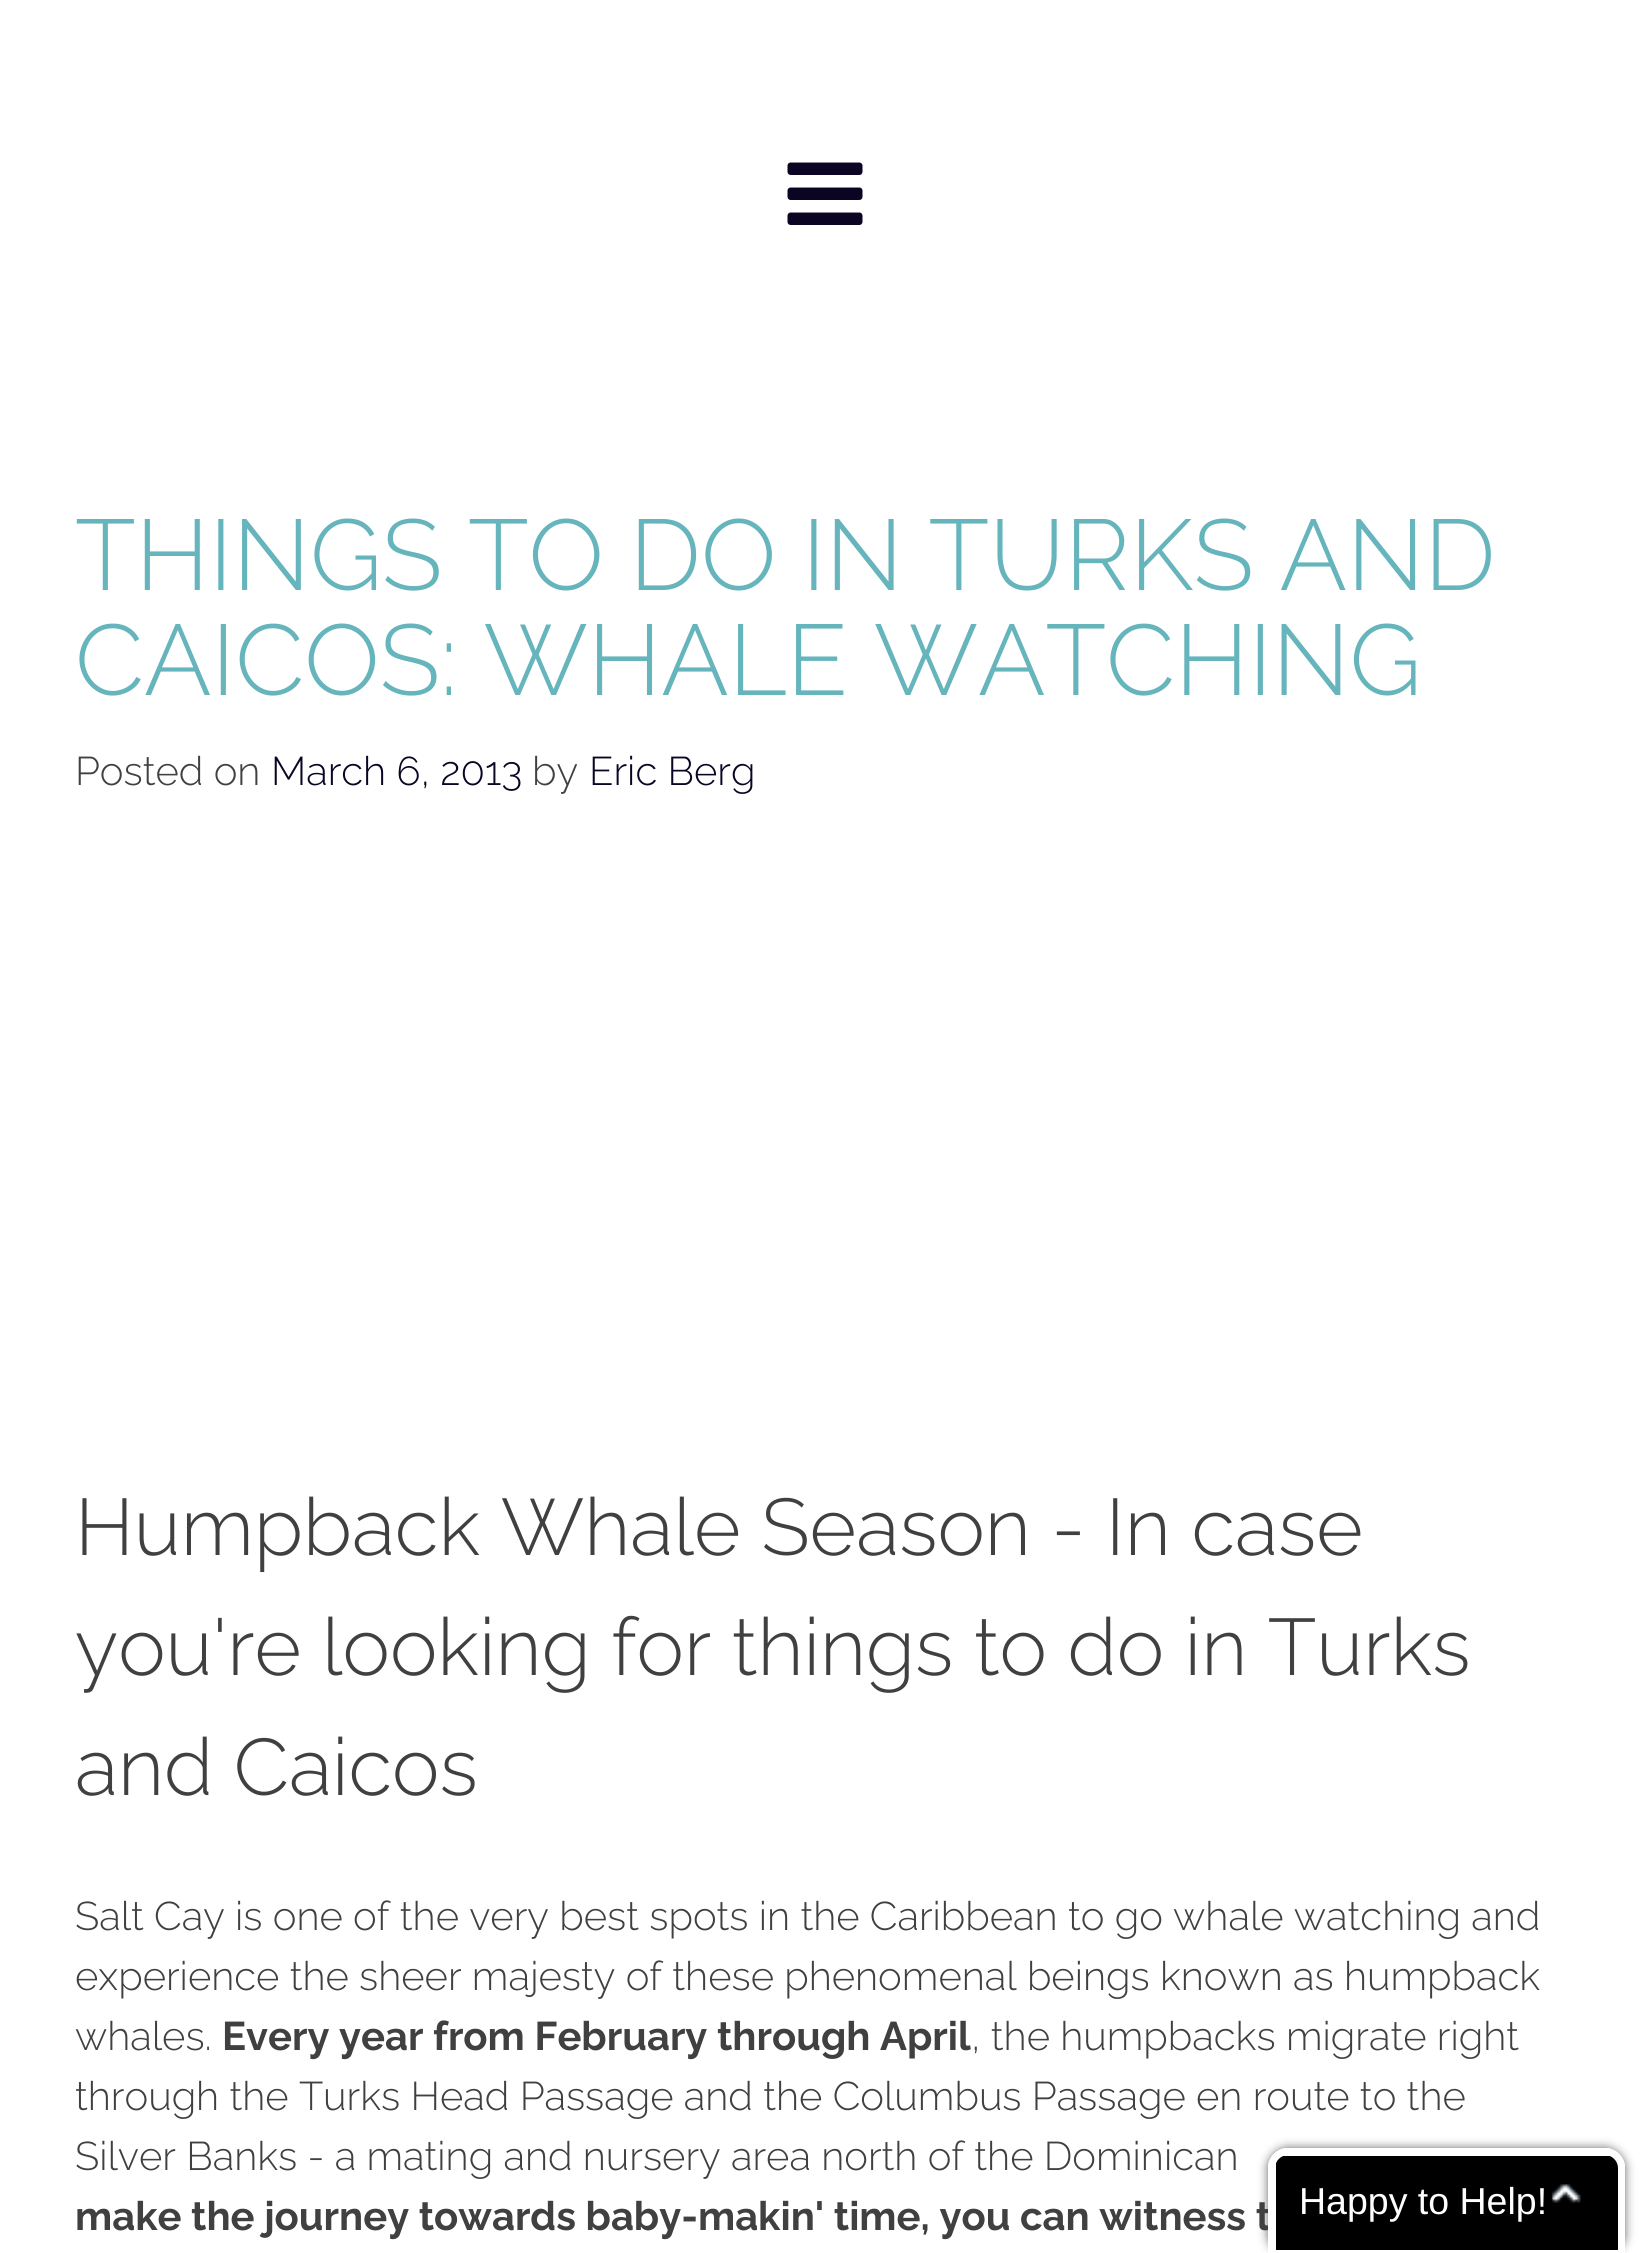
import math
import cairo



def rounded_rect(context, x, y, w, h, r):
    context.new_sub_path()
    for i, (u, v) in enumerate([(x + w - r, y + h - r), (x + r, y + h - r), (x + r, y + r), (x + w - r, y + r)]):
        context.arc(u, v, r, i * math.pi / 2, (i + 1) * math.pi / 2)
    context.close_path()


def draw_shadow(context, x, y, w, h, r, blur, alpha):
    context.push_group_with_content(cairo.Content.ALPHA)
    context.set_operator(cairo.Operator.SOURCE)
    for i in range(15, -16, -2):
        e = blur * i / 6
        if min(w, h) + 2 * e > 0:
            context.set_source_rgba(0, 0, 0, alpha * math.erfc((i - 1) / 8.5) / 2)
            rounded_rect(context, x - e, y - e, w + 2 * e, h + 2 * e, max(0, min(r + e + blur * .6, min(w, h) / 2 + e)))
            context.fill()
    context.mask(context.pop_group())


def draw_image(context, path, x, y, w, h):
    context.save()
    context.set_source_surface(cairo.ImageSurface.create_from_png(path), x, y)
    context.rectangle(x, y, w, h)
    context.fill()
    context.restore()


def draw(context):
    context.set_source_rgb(1, 1, 1)
    context.paint()
    draw_image(context, "images/1.png", 787, 162, 76, 63)
    context.save()
    context.set_fill_rule(cairo.FillRule.EVEN_ODD)
    context.new_path()
    context.move_to(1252, 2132)
    context.line_to(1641, 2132)
    context.line_to(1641, 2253)
    context.line_to(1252, 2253)
    context.close_path()
    context.move_to(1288, 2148)
    context.line_to(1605, 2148)
    context.curve_to(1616, 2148, 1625, 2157, 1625, 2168)
    context.line_to(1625, 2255)
    context.line_to(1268, 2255)
    context.line_to(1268, 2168)
    context.curve_to(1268, 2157, 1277, 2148, 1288, 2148)
    context.close_path()
    context.clip()
    context.set_source_rgb(102 / 255, 102 / 255, 102 / 255)
    draw_shadow(context, 1268, 2148, 357, 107, 20, 5, 1)
    context.restore()
    context.set_source_rgb(0, 0, 0)
    context.new_path()
    context.move_to(1288, 2155)
    context.line_to(1605, 2155)
    context.curve_to(1612, 2155, 1618, 2161, 1618, 2168)
    context.line_to(1618, 2250)
    context.line_to(1275, 2250)
    context.line_to(1275, 2168)
    context.curve_to(1275, 2161, 1281, 2155, 1288, 2155)
    context.close_path()
    context.fill()
    draw_image(context, "images/2.png", 1551, 2184, 30, 19)
    context.select_font_face("Raleway Light")
    context.set_font_size(100)
    context.set_source_rgb(102 / 255, 180 / 255, 188 / 255)
    context.move_to(75, 590)
    context.show_text("THINGS TO DO IN TURKS AND")
    context.move_to(75, 695)
    context.show_text("CAICOS: WHALE WATCHING")
    context.set_font_size(40)
    context.set_source_rgb(64 / 255, 64 / 255, 64 / 255)
    context.move_to(75, 785)
    context.show_text("Posted on")
    context.set_source_rgb(11 / 255, 4 / 255, 35 / 255)
    context.move_to(271, 785)
    context.show_text("March 6, 2013")
    context.set_source_rgb(64 / 255, 64 / 255, 64 / 255)
    context.move_to(532, 785)
    context.show_text("by")
    context.set_source_rgb(11 / 255, 4 / 255, 35 / 255)
    context.move_to(589, 785)
    context.show_text("Eric Berg")
    context.set_font_size(80)
    context.set_source_rgb(64 / 255, 64 / 255, 64 / 255)
    context.move_to(75, 1555)
    context.show_text("Humpback Whale Season - In case")
    context.move_to(75, 1675)
    context.show_text("you're looking for things to do in Turks")
    context.move_to(75, 1795)
    context.show_text("and Caicos")
    context.set_font_size(40)
    context.move_to(75, 1930)
    context.show_text("Salt Cay is one of the very best spots in the Caribbean to go whale watching and")
    context.move_to(75, 1990)
    context.show_text("experience the sheer majesty of these phenomenal beings known as humpback")
    context.move_to(75, 2050)
    context.show_text("whales.")
    context.select_font_face("Raleway", cairo.FontSlant.NORMAL, cairo.FontWeight.BOLD)
    context.move_to(222, 2050)
    context.show_text("Every year from February through April")
    context.select_font_face("Raleway Light")
    context.move_to(971, 2050)
    context.show_text(", the humpbacks migrate right")
    context.move_to(75, 2110)
    context.show_text("through the Turks Head Passage and the Columbus Passage en route to the")
    context.move_to(75, 2170)
    context.show_text("Silver Banks - a mating and nursery area north of the Dominican")
    context.select_font_face("Raleway", cairo.FontSlant.NORMAL, cairo.FontWeight.BOLD)
    context.move_to(75, 2230)
    context.show_text("make the journey towards baby-makin' time, you can witness t")
    context.new_path()
    context.move_to(1288, 2150.5)
    context.line_to(1605, 2150.5)
    context.curve_to(1614.5, 2150.5, 1622.5, 2158.5, 1622.5, 2168)
    context.line_to(1622.5, 2252.5)
    context.line_to(1270.5, 2252.5)
    context.line_to(1270.5, 2168)
    context.curve_to(1270.5, 2158.5, 1278.5, 2150.5, 1288, 2150.5)
    context.close_path()
    context.set_source_rgb(1, 1, 1)
    context.set_line_width(5)
    context.stroke()
    context.rectangle(1278, 2155, 337, 1)
    context.fill()
    context.rectangle(1275, 2158, 1, 95)
    context.fill()
    context.select_font_face("Liberation Sans")
    context.set_font_size(37.5)
    context.move_to(1299, 2214)
    context.show_text("Happy to Help!")


surface = cairo.ImageSurface(cairo.Format.RGB24, 1649, 2253)
context = cairo.Context(surface)
options = cairo.FontOptions()
options.set_hint_metrics(cairo.HintMetrics.OFF)
options.set_hint_style(cairo.HintStyle.NONE)
context.set_font_options(options)
context.set_miter_limit(4)
draw(context)
surface.write_to_png("out.png")
